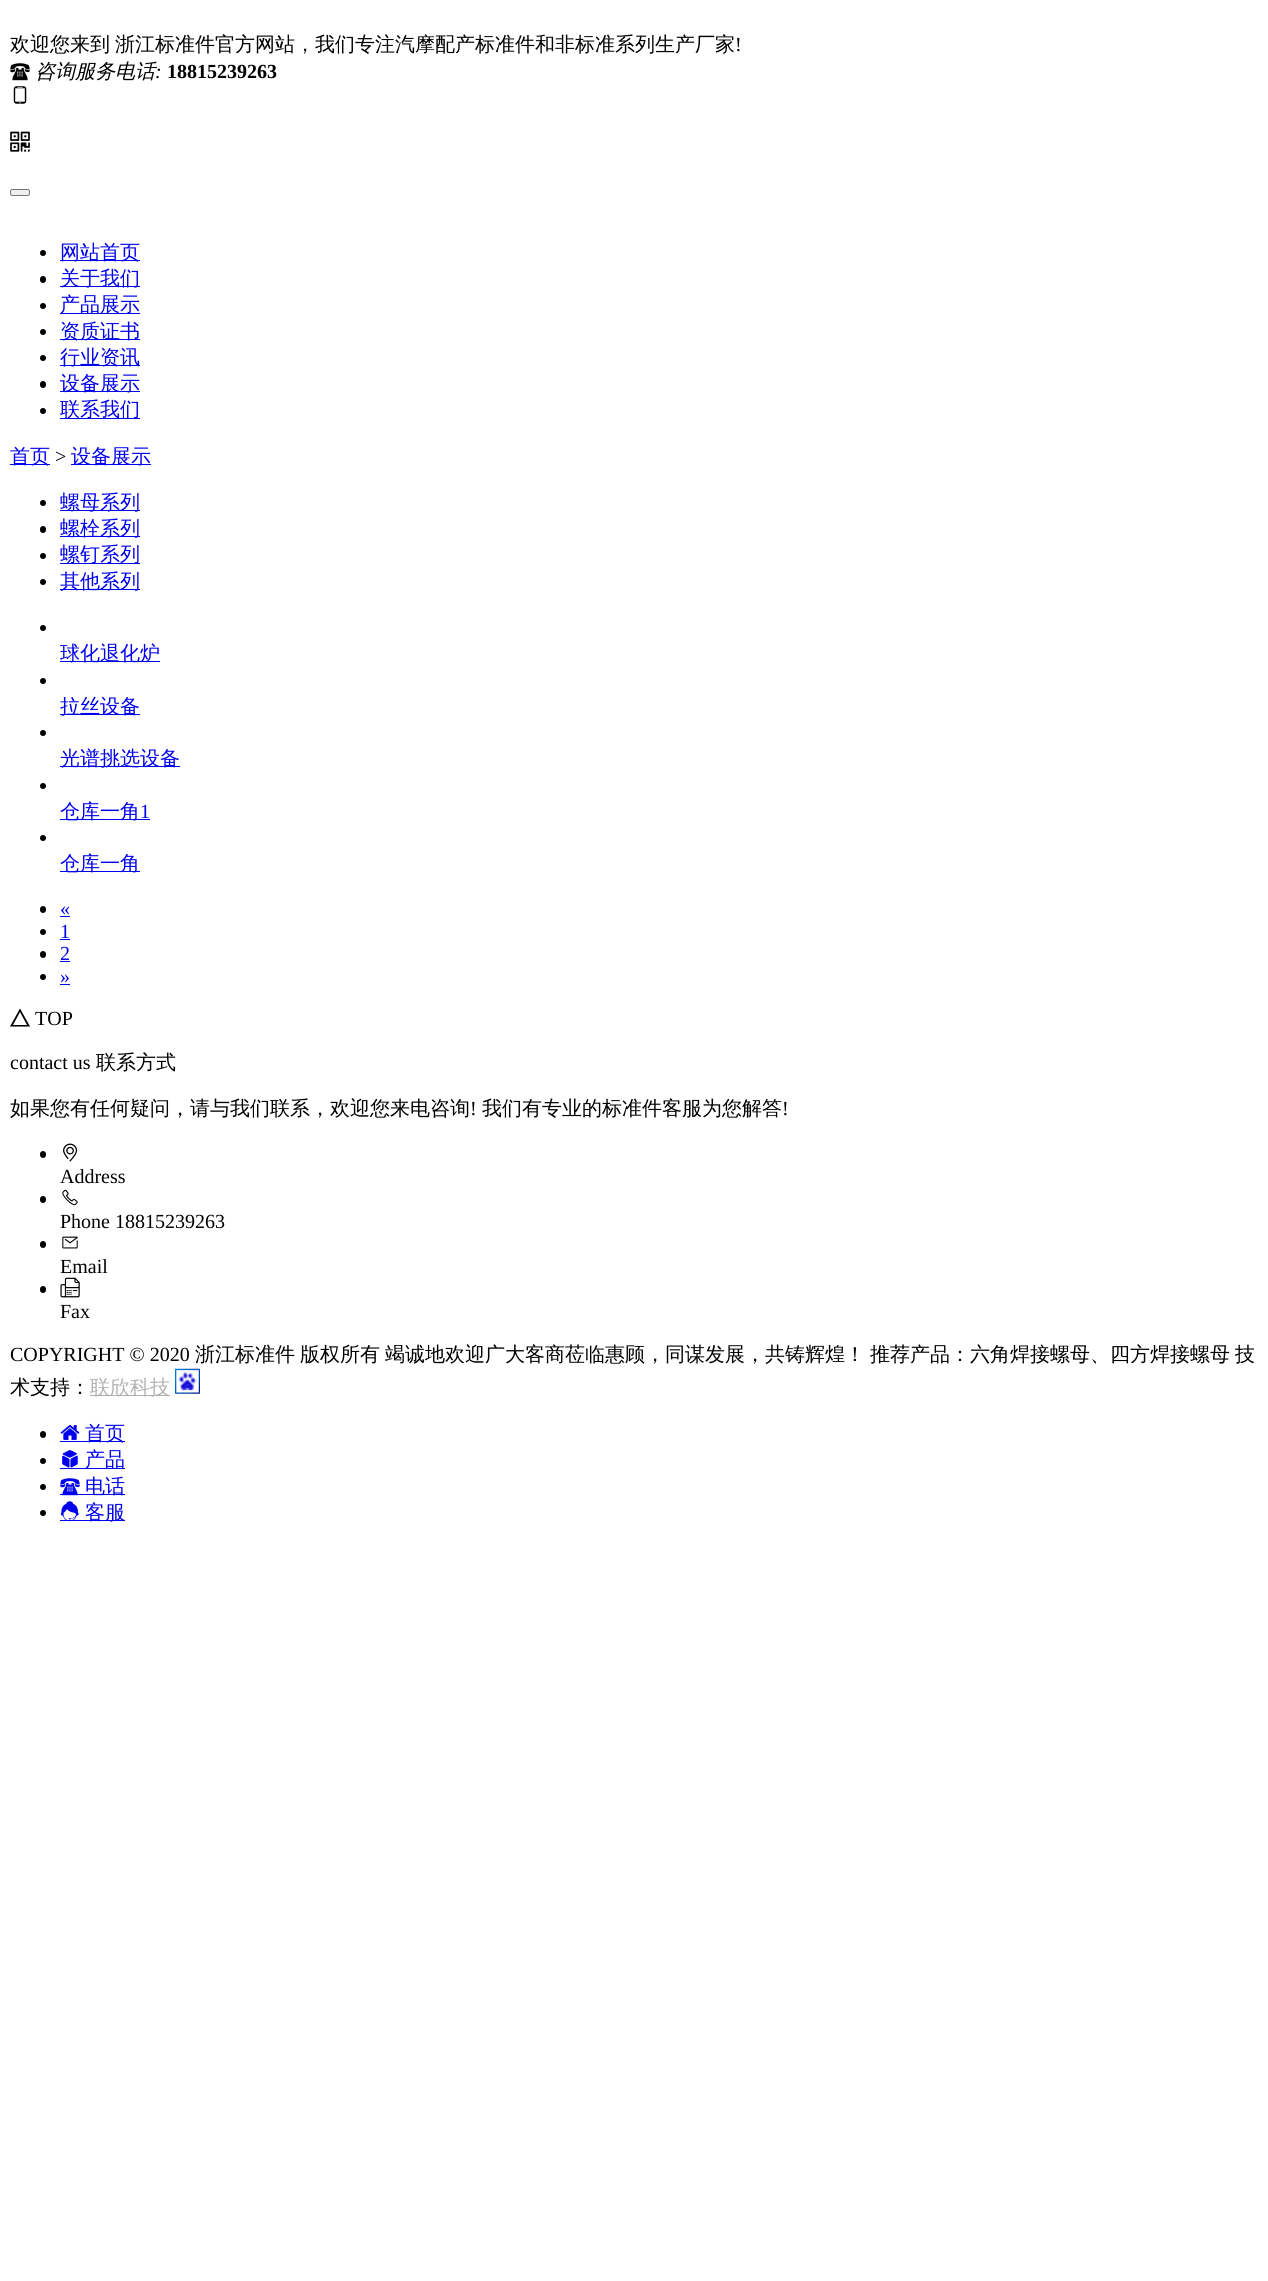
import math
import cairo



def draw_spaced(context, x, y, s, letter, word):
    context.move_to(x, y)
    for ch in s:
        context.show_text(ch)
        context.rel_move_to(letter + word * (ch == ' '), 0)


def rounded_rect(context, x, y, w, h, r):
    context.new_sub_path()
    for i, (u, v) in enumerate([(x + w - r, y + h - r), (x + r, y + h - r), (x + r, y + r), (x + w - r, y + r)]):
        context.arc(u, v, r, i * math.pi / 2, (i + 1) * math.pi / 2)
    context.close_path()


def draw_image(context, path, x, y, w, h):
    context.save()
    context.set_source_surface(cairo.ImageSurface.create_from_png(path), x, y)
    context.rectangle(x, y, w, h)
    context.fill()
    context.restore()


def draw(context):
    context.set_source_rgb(1, 1, 1)
    context.paint()
    draw_image(context, "images/1.png", 10, 63, 20, 18)
    draw_image(context, "images/2.png", 13, 86, 14, 18)
    draw_image(context, "images/3.png", 10, 131, 20, 21)
    context.set_source_rgb(239 / 255, 239 / 255, 239 / 255)
    rounded_rect(context, 10.5, 189.5, 19, 6, 2)
    context.fill_preserve()
    context.set_source_rgb(118 / 255, 118 / 255, 118 / 255)
    context.set_line_width(1)
    context.stroke()
    context.set_source_rgb(0, 0, 0)
    context.arc(43, 253, 3, 0, 2 * math.pi)
    context.fill()
    context.set_source_rgb(0, 0, 238 / 255)
    context.rectangle(60, 260, 80, 1)
    context.fill()
    context.set_source_rgb(0, 0, 0)
    rounded_rect(context, 40, 276, 6, 7, 3)
    context.fill()
    context.set_source_rgb(0, 0, 238 / 255)
    context.rectangle(60, 286, 80, 1)
    context.fill()
    context.set_source_rgb(0, 0, 0)
    context.arc(43, 306, 3, 0, 2 * math.pi)
    context.fill()
    context.set_source_rgb(0, 0, 238 / 255)
    context.rectangle(60, 313, 80, 1)
    context.fill()
    context.set_source_rgb(0, 0, 0)
    context.arc(43, 332, 3, 0, 2 * math.pi)
    context.fill()
    context.set_source_rgb(0, 0, 238 / 255)
    context.rectangle(60, 339, 80, 1)
    context.fill()
    context.set_source_rgb(0, 0, 0)
    context.arc(43, 358, 3, 0, 2 * math.pi)
    context.fill()
    context.set_source_rgb(0, 0, 238 / 255)
    context.rectangle(60, 365, 80, 1)
    context.fill()
    context.set_source_rgb(0, 0, 0)
    rounded_rect(context, 40, 381, 6, 7, 3)
    context.fill()
    context.set_source_rgb(0, 0, 238 / 255)
    context.rectangle(60, 391, 80, 1)
    context.fill()
    context.set_source_rgb(0, 0, 0)
    context.arc(43, 411, 3, 0, 2 * math.pi)
    context.fill()
    context.set_source_rgb(0, 0, 238 / 255)
    context.rectangle(60, 418, 80, 1)
    context.fill()
    context.rectangle(10, 464, 40, 1)
    context.fill()
    context.rectangle(71, 464, 80, 1)
    context.fill()
    context.set_source_rgb(0, 0, 0)
    context.arc(43, 503, 3, 0, 2 * math.pi)
    context.fill()
    context.set_source_rgb(0, 0, 238 / 255)
    context.rectangle(60, 510, 80, 1)
    context.fill()
    context.set_source_rgb(0, 0, 0)
    rounded_rect(context, 40, 526, 6, 7, 3)
    context.fill()
    context.set_source_rgb(0, 0, 238 / 255)
    context.rectangle(60, 536, 80, 1)
    context.fill()
    context.set_source_rgb(0, 0, 0)
    context.arc(43, 556, 3, 0, 2 * math.pi)
    context.fill()
    context.set_source_rgb(0, 0, 238 / 255)
    context.rectangle(60, 563, 80, 1)
    context.fill()
    context.set_source_rgb(0, 0, 0)
    context.arc(43, 582, 3, 0, 2 * math.pi)
    context.fill()
    context.set_source_rgb(0, 0, 238 / 255)
    context.rectangle(60, 589, 80, 1)
    context.fill()
    context.set_source_rgb(0, 0, 0)
    context.arc(43, 628, 3, 0, 2 * math.pi)
    context.fill()
    context.set_source_rgb(0, 0, 238 / 255)
    context.rectangle(60, 661, 100, 1)
    context.fill()
    context.set_source_rgb(0, 0, 0)
    context.arc(43, 681, 3, 0, 2 * math.pi)
    context.fill()
    context.set_source_rgb(0, 0, 238 / 255)
    context.rectangle(60, 714, 80, 1)
    context.fill()
    context.set_source_rgb(0, 0, 0)
    context.arc(43, 733, 3, 0, 2 * math.pi)
    context.fill()
    context.set_source_rgb(0, 0, 238 / 255)
    context.rectangle(60, 766, 120, 1)
    context.fill()
    context.set_source_rgb(0, 0, 0)
    context.arc(43, 786, 3, 0, 2 * math.pi)
    context.fill()
    context.set_source_rgb(0, 0, 238 / 255)
    context.rectangle(60, 819, 90, 1)
    context.fill()
    context.set_source_rgb(0, 0, 0)
    context.arc(43, 838, 3, 0, 2 * math.pi)
    context.fill()
    context.set_source_rgb(0, 0, 238 / 255)
    context.rectangle(60, 871, 80, 1)
    context.fill()
    context.set_source_rgb(0, 0, 0)
    rounded_rect(context, 40, 906, 6, 7, 3)
    context.fill()
    context.set_source_rgb(0, 0, 238 / 255)
    context.rectangle(60, 916, 10, 1)
    context.fill()
    context.set_source_rgb(0, 0, 0)
    context.arc(43, 932, 3, 0, 2 * math.pi)
    context.fill()
    context.set_source_rgb(0, 0, 238 / 255)
    context.rectangle(60, 939, 10, 1)
    context.fill()
    context.set_source_rgb(0, 0, 0)
    rounded_rect(context, 40, 951, 6, 7, 3)
    context.fill()
    context.set_source_rgb(0, 0, 238 / 255)
    context.rectangle(60, 961, 10, 1)
    context.fill()
    context.set_source_rgb(0, 0, 0)
    context.arc(43, 977, 3, 0, 2 * math.pi)
    context.fill()
    context.set_source_rgb(0, 0, 238 / 255)
    context.rectangle(60, 984, 10, 1)
    context.fill()
    context.set_source_rgb(0, 0, 0)
    context.new_path()
    context.move_to(20, 1012)
    context.line_to(27, 1025)
    context.line_to(13, 1025)
    context.close_path()
    context.move_to(20, 1008.5)
    context.line_to(10, 1026.5)
    context.line_to(30, 1026.5)
    context.close_path()
    context.fill()
    rounded_rect(context, 40, 1151, 6, 7, 3)
    context.fill()
    draw_image(context, "images/4.png", 63, 1143, 15, 19)
    rounded_rect(context, 40, 1196, 6, 7, 3)
    context.fill()
    draw_image(context, "images/5.png", 62, 1189, 16, 17)
    rounded_rect(context, 40, 1241, 6, 7, 3)
    context.fill()
    draw_image(context, "images/6.png", 62, 1236, 16, 13)
    rounded_rect(context, 40, 1286, 6, 7, 3)
    context.fill()
    draw_image(context, "images/7.png", 60, 1277, 20, 21)
    context.set_source_rgb(176 / 255, 176 / 255, 176 / 255)
    context.rectangle(90, 1395, 80, 1)
    context.fill()
    draw_image(context, "images/8.png", 175, 1368, 25, 26)
    context.set_source_rgb(0, 0, 0)
    rounded_rect(context, 40, 1431, 6, 7, 3)
    context.fill()
    draw_image(context, "images/9.png", 60, 1425, 20, 15)
    context.set_source_rgb(0, 0, 238 / 255)
    context.rectangle(60, 1441, 65, 1)
    context.fill()
    context.set_source_rgb(0, 0, 0)
    context.arc(43, 1461, 3, 0, 2 * math.pi)
    context.fill()
    draw_image(context, "images/10.png", 62, 1450, 16, 18)
    context.set_source_rgb(0, 0, 238 / 255)
    context.rectangle(60, 1468, 65, 1)
    context.fill()
    context.set_source_rgb(0, 0, 0)
    context.arc(43, 1487, 3, 0, 2 * math.pi)
    context.fill()
    context.set_source_rgb(0, 0, 238 / 255)
    context.rectangle(60, 1494, 65, 1)
    context.fill()
    draw_image(context, "images/11.png", 60, 1478, 20, 18)
    context.set_source_rgb(0, 0, 0)
    context.arc(43, 1513, 3, 0, 2 * math.pi)
    context.fill()
    context.set_source_rgb(0, 0, 238 / 255)
    context.rectangle(60, 1520, 65, 1)
    context.fill()
    draw_image(context, "images/12.png", 60, 1501, 19, 21)
    context.select_font_face("WenQuanYi Zen Hei Medium")
    context.set_font_size(20)
    context.set_source_rgb(0, 0, 0)
    draw_spaced(context, 10, 51, "欢迎您来到 浙江标准件官方网站，我们专注汽摩配产标准件和非标准系列生产厂家", 0, -1)
    context.select_font_face("Liberation Serif")
    context.move_to(735, 51)
    context.show_text("!")
    context.select_font_face("WenQuanYi Zen Hei Medium", cairo.FontSlant.ITALIC)
    context.move_to(35, 78)
    context.show_text("咨询服务电话")
    context.select_font_face("Liberation Serif", cairo.FontSlant.ITALIC)
    context.move_to(155, 78)
    context.show_text(":")
    context.select_font_face("Liberation Serif", cairo.FontSlant.NORMAL, cairo.FontWeight.BOLD)
    context.move_to(167, 78)
    context.show_text("18815239263")
    context.select_font_face("WenQuanYi Zen Hei Medium")
    context.set_source_rgb(0, 0, 238 / 255)
    context.move_to(60, 259)
    context.show_text("网站首页")
    context.move_to(60, 285)
    context.show_text("关于我们")
    context.move_to(60, 311)
    context.show_text("产品展示")
    context.move_to(60, 338)
    context.show_text("资质证书")
    context.move_to(60, 364)
    context.show_text("行业资讯")
    context.move_to(60, 390)
    context.show_text("设备展示")
    context.move_to(60, 416)
    context.show_text("联系我们")
    context.move_to(10, 463)
    context.show_text("首页")
    context.select_font_face("Liberation Serif")
    context.set_source_rgb(0, 0, 0)
    context.move_to(55, 463)
    context.show_text(">")
    context.select_font_face("WenQuanYi Zen Hei Medium")
    context.set_source_rgb(0, 0, 238 / 255)
    context.move_to(71, 463)
    context.show_text("设备展示")
    context.move_to(60, 509)
    context.show_text("螺母系列")
    context.move_to(60, 535)
    context.show_text("螺栓系列")
    context.move_to(60, 561)
    context.show_text("螺钉系列")
    context.move_to(60, 588)
    context.show_text("其他系列")
    context.move_to(60, 660)
    context.show_text("球化退化炉")
    context.move_to(60, 713)
    context.show_text("拉丝设备")
    context.move_to(60, 765)
    context.show_text("光谱挑选设备")
    context.move_to(60, 818)
    context.show_text("仓库一角")
    context.select_font_face("Liberation Serif")
    context.move_to(140, 818)
    context.show_text("1")
    context.select_font_face("WenQuanYi Zen Hei Medium")
    context.move_to(60, 870)
    context.show_text("仓库一角")
    context.select_font_face("Liberation Serif")
    context.move_to(60, 915)
    context.show_text("«")
    context.move_to(60, 938)
    context.show_text("1")
    context.move_to(60, 960)
    context.show_text("2")
    context.move_to(60, 983)
    context.show_text("»")
    context.set_source_rgb(0, 0, 0)
    context.move_to(35, 1025)
    context.show_text("TOP")
    context.move_to(10, 1069)
    context.show_text("contact us")
    context.select_font_face("WenQuanYi Zen Hei Medium")
    context.move_to(96, 1069)
    context.show_text("联系方式")
    context.move_to(10, 1115)
    context.show_text("如果您有任何疑问，请与我们联系，欢迎您来电咨询")
    context.select_font_face("Liberation Serif")
    context.move_to(470, 1115)
    context.show_text("!")
    context.select_font_face("WenQuanYi Zen Hei Medium")
    context.move_to(482, 1115)
    context.show_text("我们有专业的标准件客服为您解答")
    context.select_font_face("Liberation Serif")
    context.move_to(782, 1115)
    context.show_text("!")
    context.move_to(60, 1183)
    context.show_text("Address")
    context.move_to(60, 1228)
    context.show_text("Phone 18815239263")
    context.move_to(60, 1273)
    context.show_text("Email")
    context.move_to(60, 1318)
    context.show_text("Fax")
    context.move_to(10, 1361)
    context.show_text("COPYRIGHT © 2020")
    context.select_font_face("WenQuanYi Zen Hei Medium")
    context.move_to(195, 1361)
    context.show_text("浙江标准件")
    context.move_to(300, 1361)
    context.show_text("版权所有")
    draw_spaced(context, 385, 1361, "竭诚地欢迎广大客商莅临惠顾，同谋发展，共铸辉煌！ 推荐产品：六角焊接螺母、四方焊接螺母", 0, -1)
    context.move_to(1235, 1361)
    context.show_text("技")
    context.move_to(10, 1394)
    context.show_text("术支持：")
    context.set_source_rgb(176 / 255, 176 / 255, 176 / 255)
    context.move_to(90, 1394)
    context.show_text("联欣科技")
    context.set_source_rgb(0, 0, 238 / 255)
    context.move_to(85, 1440)
    context.show_text("首页")
    context.move_to(85, 1466)
    context.show_text("产品")
    context.move_to(85, 1493)
    context.show_text("电话")
    context.move_to(85, 1519)
    context.show_text("客服")


surface = cairo.ImageSurface(cairo.Format.RGB24, 1268, 2281)
context = cairo.Context(surface)
options = cairo.FontOptions()
options.set_hint_metrics(cairo.HintMetrics.OFF)
options.set_hint_style(cairo.HintStyle.NONE)
context.set_font_options(options)
context.set_miter_limit(4)
draw(context)
surface.write_to_png("out.png")
